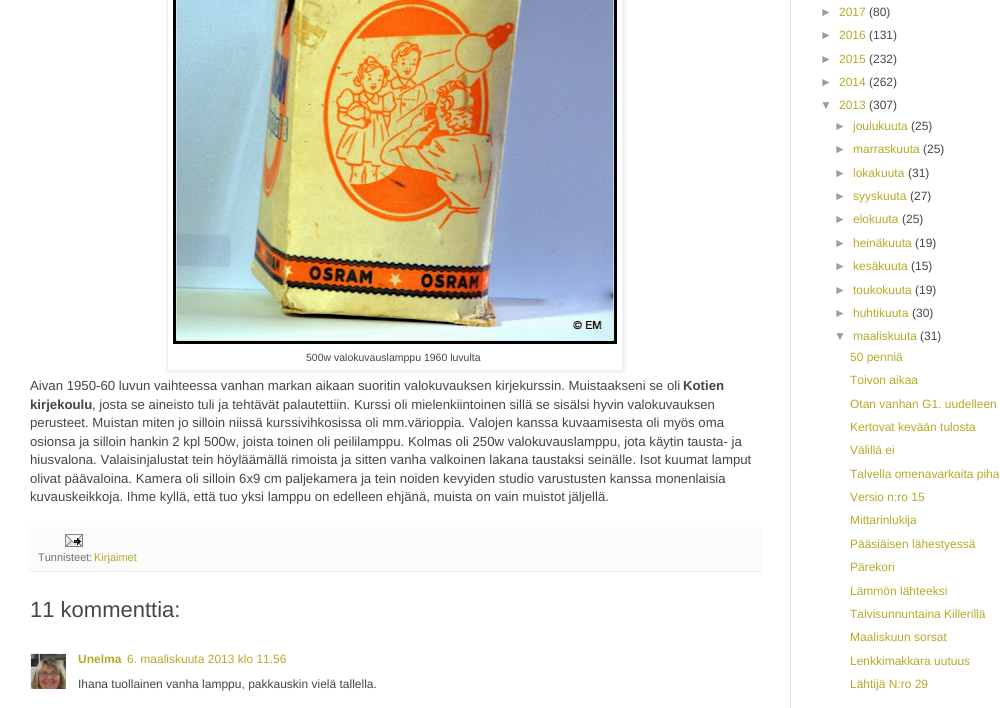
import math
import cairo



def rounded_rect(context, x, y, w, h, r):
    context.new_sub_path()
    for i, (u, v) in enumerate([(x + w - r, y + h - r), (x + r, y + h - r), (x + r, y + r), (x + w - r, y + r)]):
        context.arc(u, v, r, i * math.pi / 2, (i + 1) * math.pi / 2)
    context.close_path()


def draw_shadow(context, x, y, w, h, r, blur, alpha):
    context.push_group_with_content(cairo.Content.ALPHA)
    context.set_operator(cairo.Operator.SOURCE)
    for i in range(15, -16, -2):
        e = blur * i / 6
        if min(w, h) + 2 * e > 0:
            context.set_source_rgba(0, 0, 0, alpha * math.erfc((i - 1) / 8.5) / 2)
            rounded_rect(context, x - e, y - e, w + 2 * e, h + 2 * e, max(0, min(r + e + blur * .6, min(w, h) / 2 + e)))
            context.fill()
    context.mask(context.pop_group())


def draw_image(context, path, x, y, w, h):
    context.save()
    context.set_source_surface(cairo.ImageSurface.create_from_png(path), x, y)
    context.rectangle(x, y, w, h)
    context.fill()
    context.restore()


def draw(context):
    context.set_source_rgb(1, 1, 1)
    context.paint()
    context.set_source_rgb(223 / 255, 223 / 255, 223 / 255)
    context.rectangle(790, 0, 1, 708)
    context.fill()
    context.save()
    context.set_fill_rule(cairo.FillRule.EVEN_ODD)
    context.new_path()
    context.move_to(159, 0)
    context.line_to(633, 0)
    context.line_to(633, 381)
    context.line_to(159, 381)
    context.close_path()
    context.move_to(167, -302)
    context.line_to(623, -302)
    context.line_to(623, 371)
    context.line_to(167, 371)
    context.close_path()
    context.clip()
    context.set_source_rgb(0, 0, 0)
    draw_shadow(context, 168, -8, 456, 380, 0, 2.5, 0.1)
    context.restore()
    context.rectangle(167.5, -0.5, 455, 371)
    context.set_source_rgb(240 / 255, 240 / 255, 240 / 255)
    context.set_line_width(1)
    context.stroke()
    draw_image(context, "images/1.png", 173, 0, 444, 344)
    context.set_source_rgb(251 / 255, 251 / 255, 251 / 255)
    context.rectangle(28, 527, 734, 44)
    context.fill()
    context.set_source_rgb(240 / 255, 240 / 255, 240 / 255)
    context.rectangle(28, 571, 734, 1)
    context.fill()
    draw_image(context, "images/2.png", 65, 534, 18, 13)
    context.save()
    context.rectangle(30, 653, 36, 36)
    context.clip()
    context.rectangle(30.5, 653.5, 37, 37)
    context.stroke()
    context.restore()
    draw_image(context, "images/3.png", 31, 654, 35, 35)
    context.select_font_face("Liberation Sans")
    context.set_font_size(10.5)
    context.set_source_rgb(69 / 255, 69 / 255, 69 / 255)
    context.move_to(306, 361)
    context.show_text("500w valokuvauslamppu 1960 luvulta")
    context.set_font_size(13.2)
    context.move_to(30, 390)
    context.show_text("Aivan 1950-60 luvun vaihteessa vanhan markan aikaan suoritin valokuvauksen kirjekurssin. Muistaakseni se oli")
    context.select_font_face("Liberation Sans", cairo.FontSlant.NORMAL, cairo.FontWeight.BOLD)
    context.move_to(683, 390)
    context.show_text("Kotien")
    context.move_to(30, 409)
    context.show_text("kirjekoulu")
    context.select_font_face("Liberation Sans")
    context.move_to(92, 409)
    context.show_text(", josta se aineisto tuli ja tehtävät palautettiin. Kurssi oli mielenkiintoinen sillä se sisälsi hyvin valokuvauksen")
    context.move_to(30, 427)
    context.show_text("perusteet. Muistan miten jo silloin niissä kurssivihkosissa oli mm.värioppia. Valojen kanssa kuvaamisesta oli myös oma")
    context.move_to(30, 446)
    context.show_text("osionsa ja silloin hankin 2 kpl 500w, joista toinen oli peililamppu. Kolmas oli 250w valokuvauslamppu, jota käytin tausta- ja")
    context.move_to(30, 464)
    context.show_text("hiusvalona. Valaisinjalustat tein höyläämällä rimoista ja sitten vanha valkoinen lakana taustaksi seinälle. Isot kuumat lamput")
    context.move_to(30, 483)
    context.show_text("olivat päävaloina. Kamera oli silloin 6x9 cm paljekamera ja tein noiden kevyiden studio varustusten kanssa monenlaisia")
    context.move_to(30, 501)
    context.show_text("kuvauskeikkoja. Ihme kyllä, että tuo yksi lamppu on edelleen ehjänä, muista on vain muistot jäljellä.")
    context.set_font_size(11)
    context.set_source_rgb(111 / 255, 111 / 255, 111 / 255)
    context.move_to(38, 561)
    context.show_text("Tunnisteet:")
    context.set_source_rgb(178 / 255, 171 / 255, 39 / 255)
    context.move_to(94, 561)
    context.show_text("Kirjaimet")
    context.set_font_size(22)
    context.set_source_rgb(69 / 255, 69 / 255, 69 / 255)
    context.move_to(30, 617)
    context.show_text("11 kommenttia:")
    context.select_font_face("Liberation Sans", cairo.FontSlant.NORMAL, cairo.FontWeight.BOLD)
    context.set_font_size(12)
    context.set_source_rgb(178 / 255, 171 / 255, 39 / 255)
    context.move_to(78, 663)
    context.show_text("Unelma")
    context.select_font_face("Liberation Sans")
    context.move_to(127, 663)
    context.show_text("6. maaliskuuta 2013 klo 11.56")
    context.set_source_rgb(69 / 255, 69 / 255, 69 / 255)
    context.move_to(78, 688)
    context.show_text("Ihana tuollainen vanha lamppu, pakkauskin vielä tallella.")
    context.set_source_rgb(157 / 255, 157 / 255, 157 / 255)
    context.move_to(820, 16)
    context.show_text("►")
    context.set_source_rgb(178 / 255, 171 / 255, 39 / 255)
    context.move_to(839, 16)
    context.show_text("2017")
    context.set_source_rgb(69 / 255, 69 / 255, 69 / 255)
    context.move_to(869, 16)
    context.show_text("(80)")
    context.set_source_rgb(157 / 255, 157 / 255, 157 / 255)
    context.move_to(820, 39)
    context.show_text("►")
    context.set_source_rgb(178 / 255, 171 / 255, 39 / 255)
    context.move_to(839, 39)
    context.show_text("2016")
    context.set_source_rgb(69 / 255, 69 / 255, 69 / 255)
    context.move_to(869, 39)
    context.show_text("(131)")
    context.set_source_rgb(157 / 255, 157 / 255, 157 / 255)
    context.move_to(820, 63)
    context.show_text("►")
    context.set_source_rgb(178 / 255, 171 / 255, 39 / 255)
    context.move_to(839, 63)
    context.show_text("2015")
    context.set_source_rgb(69 / 255, 69 / 255, 69 / 255)
    context.move_to(869, 63)
    context.show_text("(232)")
    context.set_source_rgb(157 / 255, 157 / 255, 157 / 255)
    context.move_to(820, 86)
    context.show_text("►")
    context.set_source_rgb(178 / 255, 171 / 255, 39 / 255)
    context.move_to(839, 86)
    context.show_text("2014")
    context.set_source_rgb(69 / 255, 69 / 255, 69 / 255)
    context.move_to(869, 86)
    context.show_text("(262)")
    context.set_source_rgb(157 / 255, 157 / 255, 157 / 255)
    context.move_to(820, 109)
    context.show_text("▼")
    context.set_source_rgb(178 / 255, 171 / 255, 39 / 255)
    context.move_to(839, 109)
    context.show_text("2013")
    context.set_source_rgb(69 / 255, 69 / 255, 69 / 255)
    context.move_to(869, 109)
    context.show_text("(307)")
    context.set_source_rgb(157 / 255, 157 / 255, 157 / 255)
    context.move_to(834, 130)
    context.show_text("►")
    context.set_source_rgb(178 / 255, 171 / 255, 39 / 255)
    context.move_to(853, 130)
    context.show_text("joulukuuta")
    context.set_source_rgb(69 / 255, 69 / 255, 69 / 255)
    context.move_to(911, 130)
    context.show_text("(25)")
    context.set_source_rgb(157 / 255, 157 / 255, 157 / 255)
    context.move_to(834, 153)
    context.show_text("►")
    context.set_source_rgb(178 / 255, 171 / 255, 39 / 255)
    context.move_to(853, 153)
    context.show_text("marraskuuta")
    context.set_source_rgb(69 / 255, 69 / 255, 69 / 255)
    context.move_to(923, 153)
    context.show_text("(25)")
    context.set_source_rgb(157 / 255, 157 / 255, 157 / 255)
    context.move_to(834, 177)
    context.show_text("►")
    context.set_source_rgb(178 / 255, 171 / 255, 39 / 255)
    context.move_to(853, 177)
    context.show_text("lokakuuta")
    context.set_source_rgb(69 / 255, 69 / 255, 69 / 255)
    context.move_to(908, 177)
    context.show_text("(31)")
    context.set_source_rgb(157 / 255, 157 / 255, 157 / 255)
    context.move_to(834, 200)
    context.show_text("►")
    context.set_source_rgb(178 / 255, 171 / 255, 39 / 255)
    context.move_to(853, 200)
    context.show_text("syyskuuta")
    context.set_source_rgb(69 / 255, 69 / 255, 69 / 255)
    context.move_to(910, 200)
    context.show_text("(27)")
    context.set_source_rgb(157 / 255, 157 / 255, 157 / 255)
    context.move_to(834, 223)
    context.show_text("►")
    context.set_source_rgb(178 / 255, 171 / 255, 39 / 255)
    context.move_to(853, 223)
    context.show_text("elokuuta")
    context.set_source_rgb(69 / 255, 69 / 255, 69 / 255)
    context.move_to(902, 223)
    context.show_text("(25)")
    context.set_source_rgb(157 / 255, 157 / 255, 157 / 255)
    context.move_to(834, 247)
    context.show_text("►")
    context.set_source_rgb(178 / 255, 171 / 255, 39 / 255)
    context.move_to(853, 247)
    context.show_text("heinäkuuta")
    context.set_source_rgb(69 / 255, 69 / 255, 69 / 255)
    context.move_to(915, 247)
    context.show_text("(19)")
    context.set_source_rgb(157 / 255, 157 / 255, 157 / 255)
    context.move_to(834, 270)
    context.show_text("►")
    context.set_source_rgb(178 / 255, 171 / 255, 39 / 255)
    context.move_to(853, 270)
    context.show_text("kesäkuuta")
    context.set_source_rgb(69 / 255, 69 / 255, 69 / 255)
    context.move_to(911, 270)
    context.show_text("(15)")
    context.set_source_rgb(157 / 255, 157 / 255, 157 / 255)
    context.move_to(834, 294)
    context.show_text("►")
    context.set_source_rgb(178 / 255, 171 / 255, 39 / 255)
    context.move_to(853, 294)
    context.show_text("toukokuuta")
    context.set_source_rgb(69 / 255, 69 / 255, 69 / 255)
    context.move_to(915, 294)
    context.show_text("(19)")
    context.set_source_rgb(157 / 255, 157 / 255, 157 / 255)
    context.move_to(834, 317)
    context.show_text("►")
    context.set_source_rgb(178 / 255, 171 / 255, 39 / 255)
    context.move_to(853, 317)
    context.show_text("huhtikuuta")
    context.set_source_rgb(69 / 255, 69 / 255, 69 / 255)
    context.move_to(912, 317)
    context.show_text("(30)")
    context.set_source_rgb(157 / 255, 157 / 255, 157 / 255)
    context.move_to(834, 340)
    context.show_text("▼")
    context.set_source_rgb(178 / 255, 171 / 255, 39 / 255)
    context.move_to(853, 340)
    context.show_text("maaliskuuta")
    context.set_source_rgb(69 / 255, 69 / 255, 69 / 255)
    context.move_to(920, 340)
    context.show_text("(31)")
    context.set_source_rgb(178 / 255, 171 / 255, 39 / 255)
    context.move_to(850, 361)
    context.show_text("50 penniä")
    context.move_to(850, 384)
    context.show_text("Toivon aikaa")
    context.move_to(850, 408)
    context.show_text("Otan vanhan G1. uudelleen")
    context.move_to(850, 431)
    context.show_text("Kertovat kevään tulosta")
    context.move_to(850, 454)
    context.show_text("Välillä ei")
    context.move_to(850, 478)
    context.show_text("Talvella omenavarkaita piha")
    context.move_to(850, 501)
    context.show_text("Versio n:ro 15")
    context.move_to(850, 524)
    context.show_text("Mittarinlukija")
    context.move_to(850, 548)
    context.show_text("Pääsiäisen lähestyessä")
    context.move_to(850, 571)
    context.show_text("Pärekori")
    context.move_to(850, 595)
    context.show_text("Lämmön lähteeksi")
    context.move_to(850, 618)
    context.show_text("Talvisunnuntaina Killerillä")
    context.move_to(850, 641)
    context.show_text("Maaliskuun sorsat")
    context.move_to(850, 665)
    context.show_text("Lenkkimakkara uutuus")
    context.move_to(850, 688)
    context.show_text("Lähtijä N:ro 29")


surface = cairo.ImageSurface(cairo.Format.RGB24, 1000, 708)
context = cairo.Context(surface)
options = cairo.FontOptions()
options.set_hint_metrics(cairo.HintMetrics.OFF)
options.set_hint_style(cairo.HintStyle.NONE)
context.set_font_options(options)
context.set_miter_limit(4)
draw(context)
surface.write_to_png("out.png")
